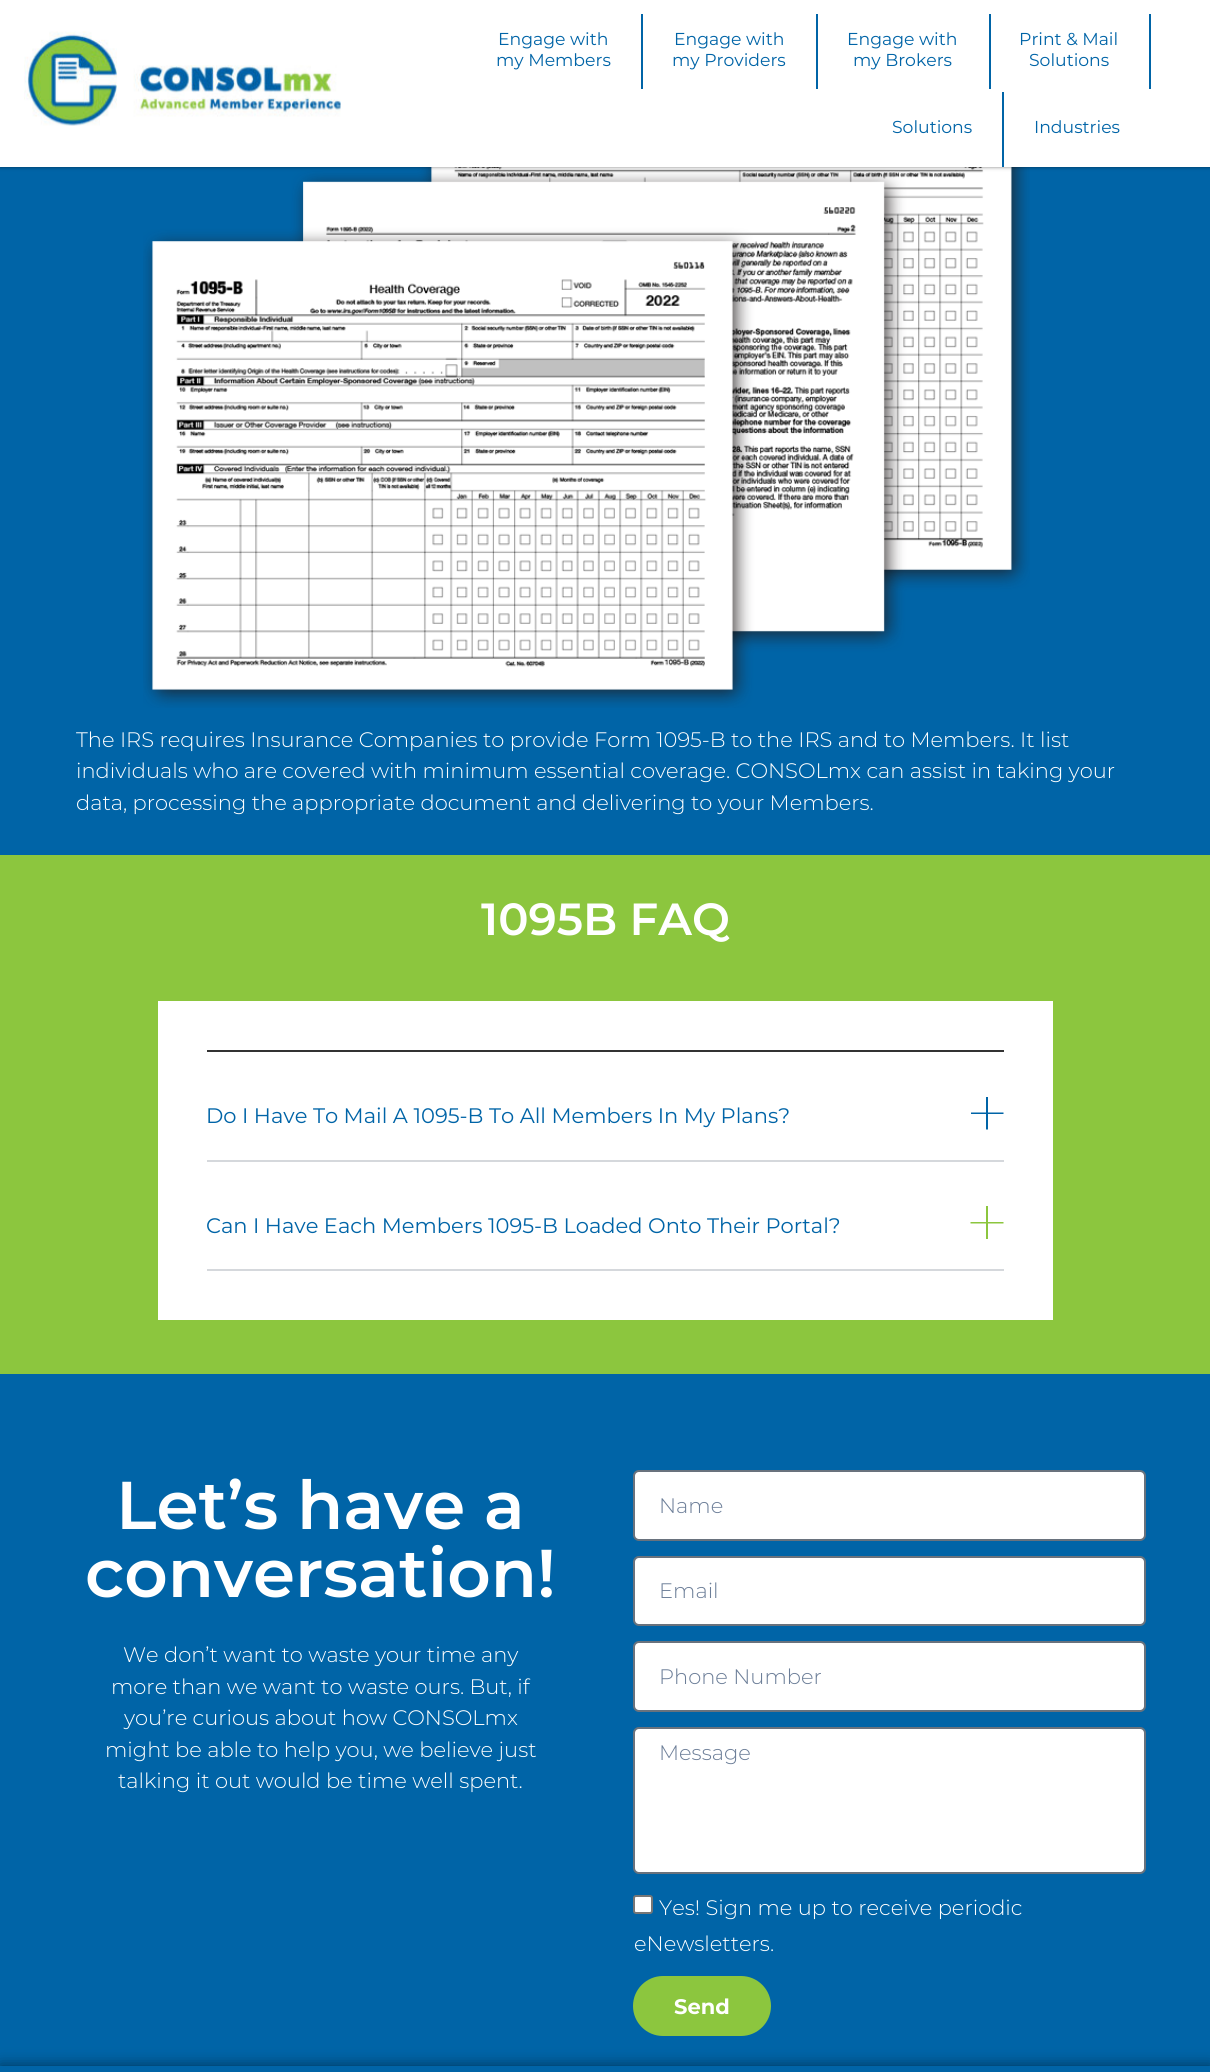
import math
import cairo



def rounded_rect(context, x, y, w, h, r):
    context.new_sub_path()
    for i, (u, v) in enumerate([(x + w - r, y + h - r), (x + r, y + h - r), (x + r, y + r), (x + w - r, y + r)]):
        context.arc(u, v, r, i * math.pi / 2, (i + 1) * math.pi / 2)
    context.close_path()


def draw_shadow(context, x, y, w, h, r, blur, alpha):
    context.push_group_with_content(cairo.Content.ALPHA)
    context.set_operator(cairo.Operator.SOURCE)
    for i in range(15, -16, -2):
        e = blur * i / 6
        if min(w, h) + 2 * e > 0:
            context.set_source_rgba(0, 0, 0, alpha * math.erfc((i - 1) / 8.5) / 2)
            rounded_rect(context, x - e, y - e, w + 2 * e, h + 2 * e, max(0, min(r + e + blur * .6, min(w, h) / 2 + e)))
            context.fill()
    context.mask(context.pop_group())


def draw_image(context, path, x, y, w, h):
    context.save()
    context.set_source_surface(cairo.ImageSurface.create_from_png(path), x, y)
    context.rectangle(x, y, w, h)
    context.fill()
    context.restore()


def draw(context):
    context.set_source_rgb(0, 100 / 255, 167 / 255)
    context.paint()
    draw_image(context, "images/2.png", 143, 167, 887, 541)
    context.set_source_rgb(0, 0, 0)
    draw_shadow(context, 0, 0, 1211, 167, 0, 2, 0.5)
    context.set_source_rgb(1, 1, 1)
    context.rectangle(0, 0, 1210, 167)
    context.fill()
    draw_image(context, "images/1.png", 24, 31, 317, 95)
    context.set_source_rgb(0, 100 / 255, 167 / 255)
    context.rectangle(641, 14, 2, 75)
    context.fill()
    context.rectangle(816, 14, 2, 75)
    context.fill()
    context.rectangle(989, 14, 2, 75)
    context.fill()
    context.rectangle(1149, 14, 2, 75)
    context.fill()
    context.rectangle(1002, 92, 2, 75)
    context.fill()
    context.set_source_rgb(140 / 255, 198 / 255, 62 / 255)
    context.rectangle(0, 855, 1210, 519)
    context.fill()
    context.set_source_rgb(1, 1, 1)
    context.rectangle(158, 1001, 895, 319)
    context.fill()
    context.set_source_rgb(51 / 255, 51 / 255, 51 / 255)
    context.rectangle(207, 1050, 797, 2)
    context.fill()
    context.set_source_rgb(213 / 255, 216 / 255, 220 / 255)
    context.rectangle(207, 1160, 797, 2)
    context.fill()
    context.save()
    context.rectangle(971, 1097, 33, 33)
    context.clip()
    context.set_source_rgb(0, 100 / 255, 167 / 255)
    context.new_path()
    context.move_to(988, 1112.5)
    context.line_to(988, 1096.5)
    context.line_to(986, 1096.5)
    context.line_to(986, 1112.5)
    context.line_to(970.5, 1112.5)
    context.line_to(970.5, 1114)
    context.line_to(986, 1114)
    context.line_to(986, 1129.5)
    context.line_to(988, 1129.5)
    context.line_to(988, 1114)
    context.line_to(1003.5, 1114)
    context.line_to(1003.5, 1112.5)
    context.close_path()
    context.fill()
    context.restore()
    context.rectangle(207, 1269, 797, 2)
    context.fill()
    context.set_source_rgb(140 / 255, 198 / 255, 62 / 255)
    context.new_path()
    context.move_to(988, 1222)
    context.line_to(988, 1206)
    context.line_to(986, 1206)
    context.line_to(986, 1222)
    context.line_to(970.5, 1222)
    context.line_to(970.5, 1223.5)
    context.line_to(986, 1223.5)
    context.line_to(986, 1239)
    context.line_to(988, 1239)
    context.line_to(988, 1223.5)
    context.line_to(1003.5, 1223.5)
    context.line_to(1003.5, 1222)
    context.close_path()
    context.fill()
    context.set_source_rgb(1, 1, 1)
    rounded_rect(context, 634, 1471, 511, 69, 5)
    context.fill_preserve()
    context.set_source_rgb(105 / 255, 114 / 255, 125 / 255)
    context.stroke()
    context.set_source_rgb(1, 1, 1)
    rounded_rect(context, 634, 1557, 511, 68, 5)
    context.fill_preserve()
    context.set_source_rgb(105 / 255, 114 / 255, 125 / 255)
    context.stroke()
    context.set_source_rgb(1, 1, 1)
    rounded_rect(context, 634, 1642, 511, 69, 5)
    context.fill_preserve()
    context.set_source_rgb(105 / 255, 114 / 255, 125 / 255)
    context.stroke()
    context.set_source_rgb(1, 1, 1)
    rounded_rect(context, 634, 1728, 511, 145, 5)
    context.fill_preserve()
    context.set_source_rgb(105 / 255, 114 / 255, 125 / 255)
    context.stroke()
    context.set_source_rgb(1, 1, 1)
    rounded_rect(context, 634, 1896, 18, 17, 2)
    context.fill_preserve()
    context.set_source_rgb(118 / 255, 118 / 255, 118 / 255)
    context.stroke()
    context.set_source_rgb(140 / 255, 198 / 255, 62 / 255)
    rounded_rect(context, 633, 1976, 138, 60, 30)
    context.fill()
    context.set_source_rgb(0, 0, 0)
    draw_shadow(context, 0, 2066, 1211, 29, 0, 7.5, 0.5)
    context.set_source_rgb(0, 100 / 255, 167 / 255)
    context.rectangle(0, 2066, 1210, 6)
    context.fill()
    context.select_font_face("Montserrat")
    context.set_font_size(17.25)
    context.move_to(498, 45)
    context.show_text("Engage with")
    context.move_to(496, 66)
    context.show_text("my Members")
    context.move_to(674, 45)
    context.show_text("Engage with")
    context.move_to(672, 66)
    context.show_text("my Providers")
    context.move_to(847, 45)
    context.show_text("Engage with")
    context.move_to(853, 66)
    context.show_text("my Brokers")
    context.move_to(1019, 45)
    context.show_text("Print & Mail")
    context.move_to(1029, 66)
    context.show_text("Solutions")
    context.move_to(892, 133)
    context.show_text("Solutions")
    context.move_to(1034, 133)
    context.show_text("Industries")
    context.select_font_face("Montserrat Light")
    context.set_font_size(21)
    context.set_source_rgb(1, 1, 1)
    context.move_to(76, 747)
    context.show_text("The IRS requires Insurance Companies to provide Form 1095-B to the IRS and to Members. It list")
    context.move_to(76, 778)
    context.show_text("individuals who are covered with minimum essential coverage. CONSOLmx can assist in taking your")
    context.move_to(76, 810)
    context.show_text("data, processing the appropriate document and delivering to your Members.")
    context.select_font_face("Montserrat SemiBold")
    context.set_font_size(45)
    context.move_to(481, 935)
    context.show_text("1095B FAQ")
    context.select_font_face("Montserrat")
    context.set_font_size(21)
    context.set_source_rgb(0, 100 / 255, 167 / 255)
    context.move_to(206, 1123)
    context.show_text("Do I Have To Mail A 1095-B To All Members In My Plans?")
    context.move_to(206, 1233)
    context.show_text("Can I Have Each Members 1095-B Loaded Onto Their Portal?")
    context.select_font_face("Montserrat SemiBold")
    context.set_font_size(67.5)
    context.set_source_rgb(1, 1, 1)
    context.move_to(116, 1529)
    context.show_text("Let’s have a")
    context.move_to(85, 1597)
    context.show_text("conversation!")
    context.select_font_face("Montserrat Light")
    context.set_font_size(21)
    context.move_to(123, 1662)
    context.show_text("We don’t want to waste your time any")
    context.move_to(111, 1694)
    context.show_text("more than we want to waste ours. But, if")
    context.move_to(124, 1725)
    context.show_text("you’re curious about how CONSOLmx")
    context.move_to(105, 1757)
    context.show_text("might be able to help you, we believe just")
    context.move_to(118, 1788)
    context.show_text("talking it out would be time well spent.")
    context.set_source_rgb(108 / 255, 126 / 255, 152 / 255)
    context.move_to(659, 1513)
    context.show_text("Name")
    context.move_to(659, 1598)
    context.show_text("Email")
    context.move_to(659, 1684)
    context.show_text("Phone Number")
    context.move_to(659, 1760)
    context.show_text("Message")
    context.set_source_rgb(1, 1, 1)
    context.move_to(659, 1915)
    context.show_text("Yes! Sign me up to receive periodic")
    context.move_to(634, 1951)
    context.show_text("eNewsletters.")
    context.select_font_face("Montserrat", cairo.FontSlant.NORMAL, cairo.FontWeight.BOLD)
    context.move_to(674, 2014)
    context.show_text("Send")


surface = cairo.ImageSurface(cairo.Format.RGB24, 1210, 2072)
context = cairo.Context(surface)
options = cairo.FontOptions()
options.set_hint_metrics(cairo.HintMetrics.OFF)
options.set_hint_style(cairo.HintStyle.NONE)
context.set_font_options(options)
context.set_miter_limit(4)
draw(context)
surface.write_to_png("out.png")
